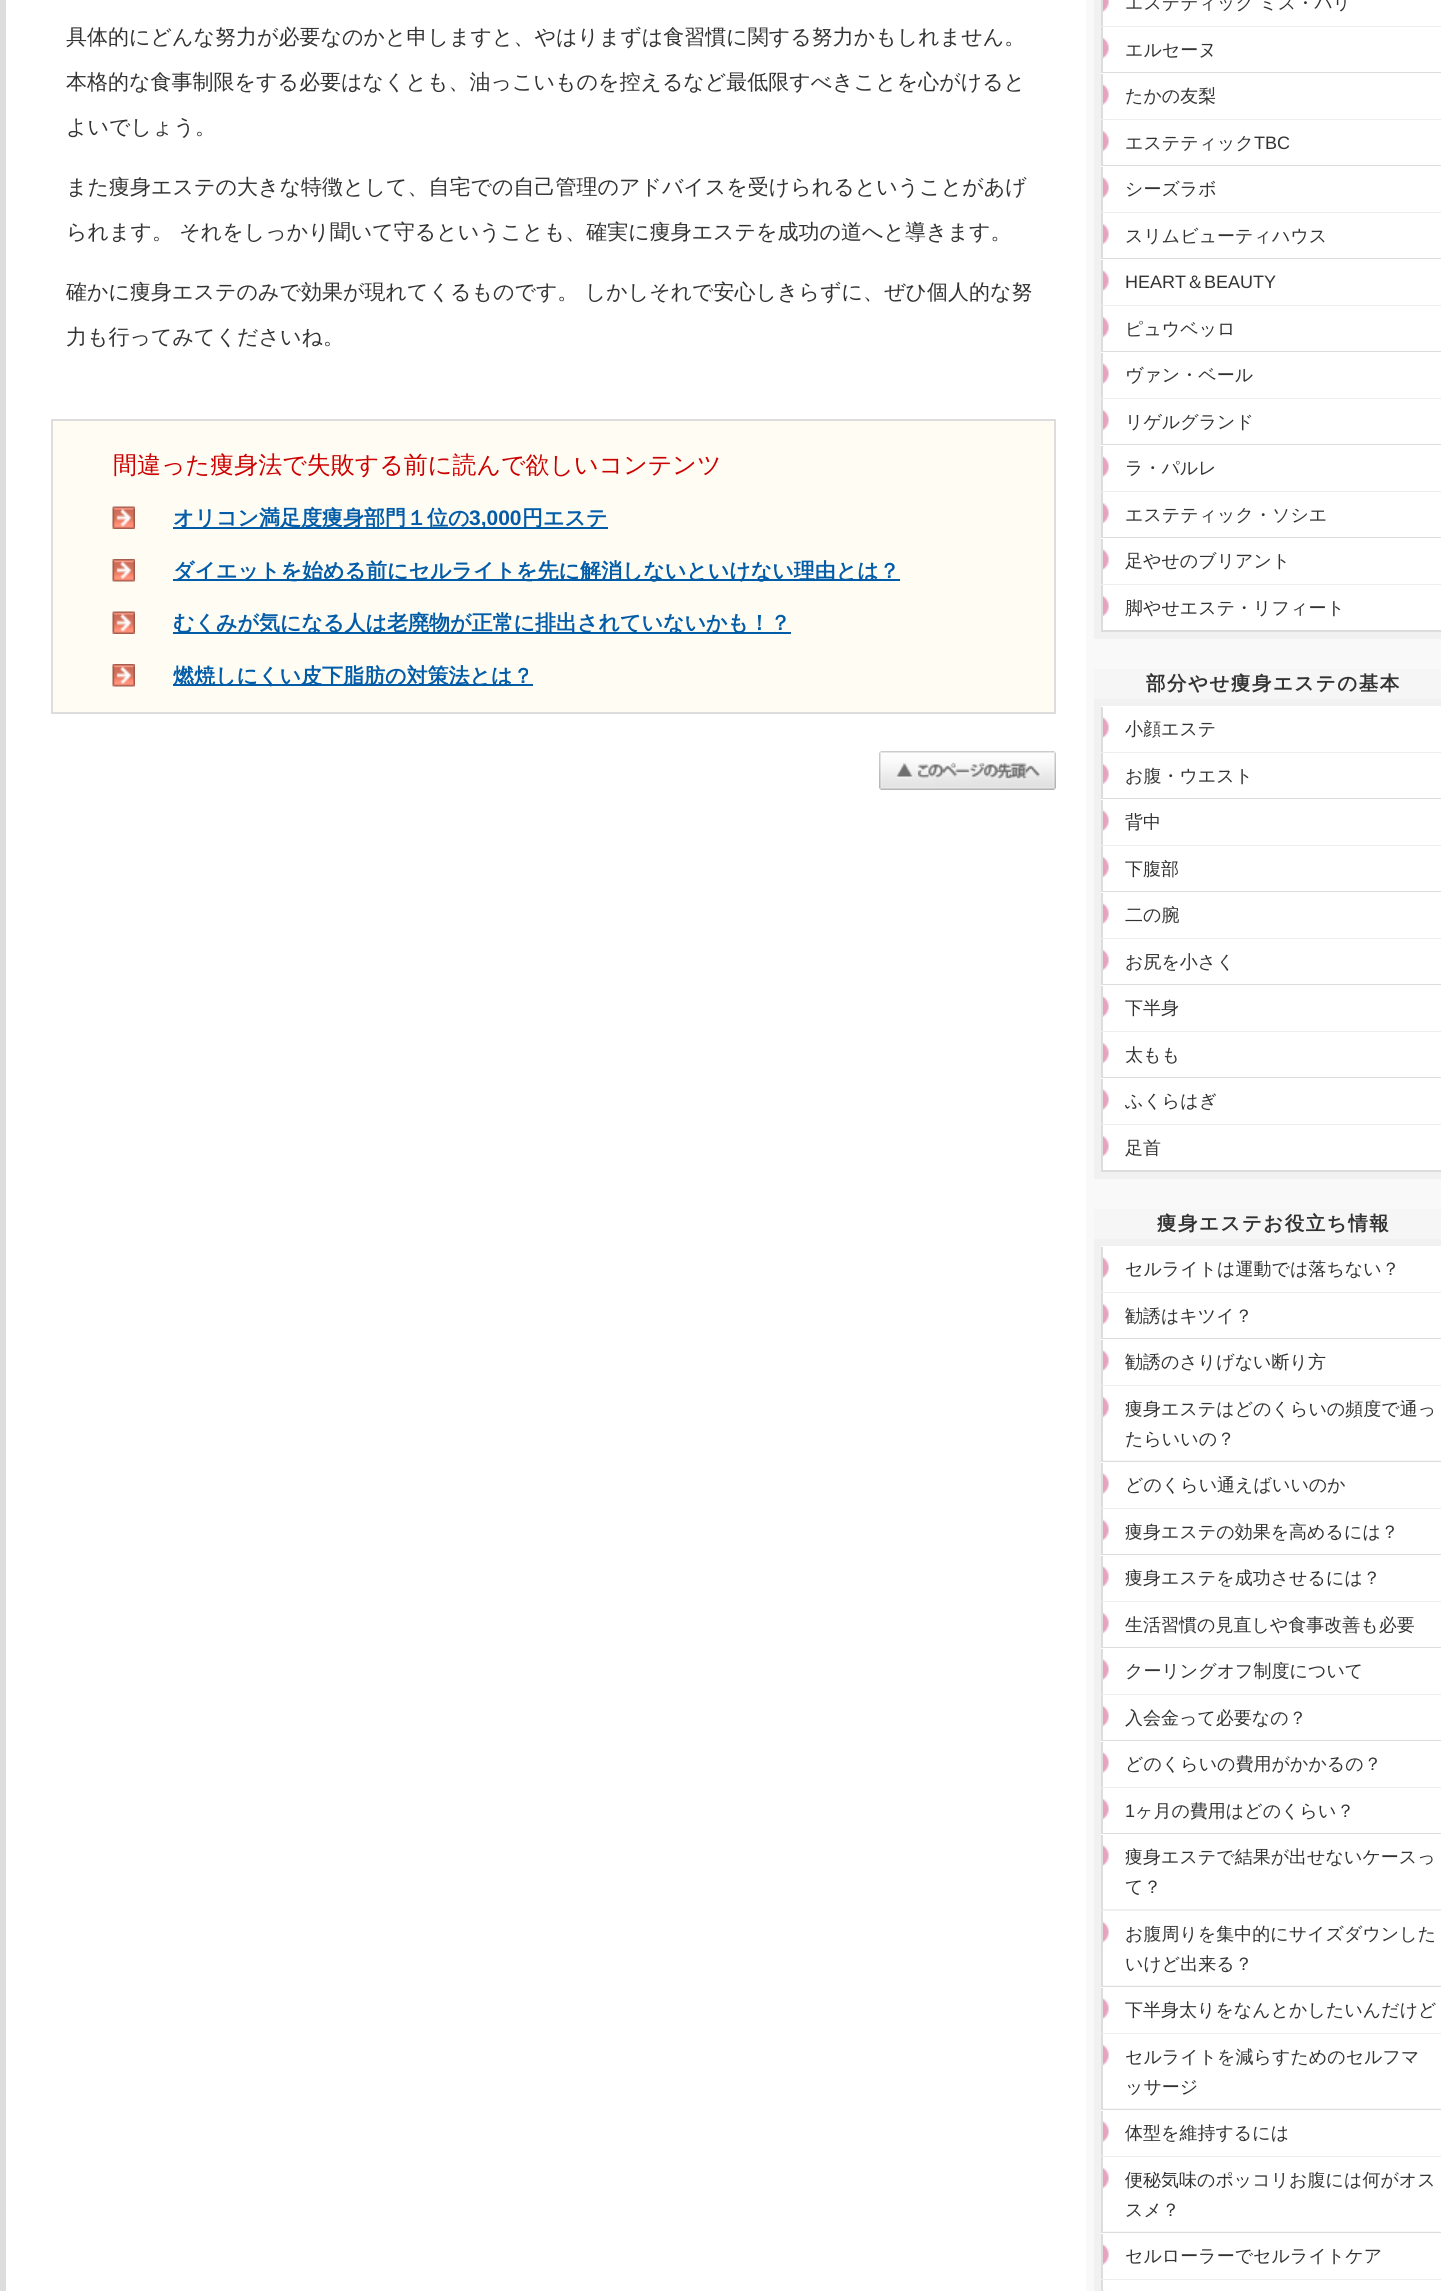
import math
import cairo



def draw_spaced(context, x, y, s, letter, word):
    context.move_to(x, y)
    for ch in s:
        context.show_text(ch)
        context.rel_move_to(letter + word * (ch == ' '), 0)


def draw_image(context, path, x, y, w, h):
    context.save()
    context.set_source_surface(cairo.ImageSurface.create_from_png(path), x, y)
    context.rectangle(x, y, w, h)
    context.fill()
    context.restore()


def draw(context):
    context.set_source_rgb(1, 1, 1)
    context.paint()
    context.set_source_rgb(221 / 255, 221 / 255, 221 / 255)
    context.rectangle(0, 0, 6, 2291)
    context.fill()
    context.set_source_rgb(1, 253 / 255, 243 / 255)
    context.rectangle(52, 420, 1003, 293)
    context.fill_preserve()
    context.set_source_rgb(221 / 255, 221 / 255, 221 / 255)
    context.stroke()
    draw_image(context, "images/1.png", 112, 506, 23, 23)
    context.set_source_rgb(3 / 255, 92 / 255, 168 / 255)
    context.rectangle(173, 527, 435, 2)
    context.fill()
    draw_image(context, "images/2.png", 112, 559, 23, 23)
    context.rectangle(173, 579, 727, 2)
    context.fill()
    draw_image(context, "images/1.png", 112, 611, 23, 23)
    context.rectangle(173, 632, 618, 2)
    context.fill()
    draw_image(context, "images/2.png", 112, 664, 23, 23)
    context.rectangle(173, 684, 360, 2)
    context.fill()
    draw_image(context, "images/3.png", 879, 751, 177, 39)
    context.set_source_rgb(249 / 255, 249 / 255, 249 / 255)
    context.rectangle(1086, 0, 355, 2291)
    context.fill()
    context.set_source_rgb(241 / 255, 241 / 255, 241 / 255)
    context.rectangle(1094, 0, 347, 639)
    context.fill()
    draw_image(context, "images/4.png", 1103, 0, 338, 26)
    context.set_source_rgb(221 / 255, 221 / 255, 221 / 255)
    context.rectangle(1101, 26, 340, 1)
    context.fill()
    context.rectangle(1101, 0, 2, 27)
    context.fill()
    draw_image(context, "images/5.png", 1101, 26, 340, 46)
    context.rectangle(1101, 72, 340, 1)
    context.fill()
    context.rectangle(1101, 27, 2, 47)
    context.fill()
    draw_image(context, "images/6.png", 1101, 73, 340, 46)
    context.rectangle(1101, 119, 340, 1)
    context.fill()
    context.rectangle(1101, 74, 2, 46)
    context.fill()
    draw_image(context, "images/5.png", 1101, 119, 340, 46)
    context.rectangle(1101, 165, 340, 1)
    context.fill()
    context.rectangle(1101, 120, 2, 47)
    context.fill()
    draw_image(context, "images/6.png", 1101, 166, 340, 46)
    context.rectangle(1101, 212, 340, 1)
    context.fill()
    context.rectangle(1101, 167, 2, 46)
    context.fill()
    draw_image(context, "images/5.png", 1101, 212, 340, 46)
    context.rectangle(1101, 258, 340, 1)
    context.fill()
    context.rectangle(1101, 213, 2, 47)
    context.fill()
    draw_image(context, "images/6.png", 1101, 259, 340, 46)
    context.rectangle(1101, 305, 340, 1)
    context.fill()
    context.rectangle(1101, 260, 2, 46)
    context.fill()
    draw_image(context, "images/5.png", 1101, 305, 340, 46)
    context.rectangle(1101, 351, 340, 1)
    context.fill()
    context.rectangle(1101, 306, 2, 47)
    context.fill()
    draw_image(context, "images/6.png", 1101, 352, 340, 46)
    context.rectangle(1101, 398, 340, 1)
    context.fill()
    context.rectangle(1101, 353, 2, 46)
    context.fill()
    draw_image(context, "images/5.png", 1101, 398, 340, 46)
    context.rectangle(1101, 444, 340, 1)
    context.fill()
    context.rectangle(1101, 399, 2, 47)
    context.fill()
    draw_image(context, "images/6.png", 1101, 445, 340, 46)
    context.rectangle(1101, 491, 340, 1)
    context.fill()
    context.rectangle(1101, 446, 2, 46)
    context.fill()
    draw_image(context, "images/5.png", 1101, 491, 340, 46)
    context.rectangle(1101, 537, 340, 1)
    context.fill()
    context.rectangle(1101, 492, 2, 47)
    context.fill()
    draw_image(context, "images/6.png", 1101, 538, 340, 46)
    context.rectangle(1101, 584, 340, 1)
    context.fill()
    context.rectangle(1101, 539, 2, 46)
    context.fill()
    draw_image(context, "images/5.png", 1101, 584, 340, 46)
    context.rectangle(1101, 630, 340, 2)
    context.fill()
    context.rectangle(1101, 585, 2, 47)
    context.fill()
    context.set_source_rgb(246 / 255, 246 / 255, 246 / 255)
    context.rectangle(1094, 669, 347, 30)
    context.fill()
    context.set_source_rgb(241 / 255, 241 / 255, 241 / 255)
    context.rectangle(1094, 699, 347, 480)
    context.fill()
    draw_image(context, "images/6.png", 1101, 706, 340, 46)
    context.set_source_rgb(221 / 255, 221 / 255, 221 / 255)
    context.rectangle(1101, 752, 340, 1)
    context.fill()
    context.rectangle(1101, 707, 2, 46)
    context.fill()
    draw_image(context, "images/5.png", 1101, 752, 340, 46)
    context.rectangle(1101, 798, 340, 1)
    context.fill()
    context.rectangle(1101, 753, 2, 47)
    context.fill()
    draw_image(context, "images/6.png", 1101, 799, 340, 46)
    context.rectangle(1101, 845, 340, 1)
    context.fill()
    context.rectangle(1101, 800, 2, 46)
    context.fill()
    draw_image(context, "images/5.png", 1101, 845, 340, 46)
    context.rectangle(1101, 891, 340, 1)
    context.fill()
    context.rectangle(1101, 846, 2, 47)
    context.fill()
    draw_image(context, "images/6.png", 1101, 892, 340, 46)
    context.rectangle(1101, 938, 340, 1)
    context.fill()
    context.rectangle(1101, 893, 2, 46)
    context.fill()
    draw_image(context, "images/5.png", 1101, 938, 340, 46)
    context.rectangle(1101, 984, 340, 1)
    context.fill()
    context.rectangle(1101, 939, 2, 47)
    context.fill()
    draw_image(context, "images/6.png", 1101, 985, 340, 46)
    context.rectangle(1101, 1031, 340, 1)
    context.fill()
    context.rectangle(1101, 986, 2, 46)
    context.fill()
    draw_image(context, "images/5.png", 1101, 1031, 340, 46)
    context.rectangle(1101, 1077, 340, 1)
    context.fill()
    context.rectangle(1101, 1032, 2, 47)
    context.fill()
    draw_image(context, "images/6.png", 1101, 1078, 340, 46)
    context.rectangle(1101, 1124, 340, 1)
    context.fill()
    context.rectangle(1101, 1079, 2, 46)
    context.fill()
    draw_image(context, "images/5.png", 1101, 1124, 340, 46)
    context.rectangle(1101, 1170, 340, 2)
    context.fill()
    context.rectangle(1101, 1125, 2, 47)
    context.fill()
    context.set_source_rgb(246 / 255, 246 / 255, 246 / 255)
    context.rectangle(1094, 1209, 347, 30)
    context.fill()
    context.set_source_rgb(241 / 255, 241 / 255, 241 / 255)
    context.rectangle(1094, 1239, 347, 1052)
    context.fill()
    draw_image(context, "images/6.png", 1101, 1246, 340, 46)
    context.set_source_rgb(221 / 255, 221 / 255, 221 / 255)
    context.rectangle(1101, 1292, 340, 1)
    context.fill()
    context.rectangle(1101, 1247, 2, 46)
    context.fill()
    draw_image(context, "images/5.png", 1101, 1292, 340, 46)
    context.rectangle(1101, 1338, 340, 1)
    context.fill()
    context.rectangle(1101, 1293, 2, 47)
    context.fill()
    draw_image(context, "images/6.png", 1101, 1339, 340, 46)
    context.rectangle(1101, 1385, 340, 1)
    context.fill()
    context.rectangle(1101, 1340, 2, 46)
    context.fill()
    draw_image(context, "images/7.png", 1101, 1385, 340, 76)
    context.rectangle(1101, 1461, 340, 1)
    context.fill()
    context.rectangle(1101, 1386, 2, 77)
    context.fill()
    draw_image(context, "images/6.png", 1101, 1462, 340, 46)
    context.rectangle(1101, 1508, 340, 1)
    context.fill()
    context.rectangle(1101, 1463, 2, 46)
    context.fill()
    draw_image(context, "images/5.png", 1101, 1508, 340, 46)
    context.rectangle(1101, 1554, 340, 1)
    context.fill()
    context.rectangle(1101, 1509, 2, 47)
    context.fill()
    draw_image(context, "images/6.png", 1101, 1555, 340, 46)
    context.rectangle(1101, 1601, 340, 1)
    context.fill()
    context.rectangle(1101, 1556, 2, 46)
    context.fill()
    draw_image(context, "images/5.png", 1101, 1601, 340, 46)
    context.rectangle(1101, 1647, 340, 1)
    context.fill()
    context.rectangle(1101, 1602, 2, 47)
    context.fill()
    draw_image(context, "images/6.png", 1101, 1648, 340, 46)
    context.rectangle(1101, 1694, 340, 1)
    context.fill()
    context.rectangle(1101, 1649, 2, 46)
    context.fill()
    draw_image(context, "images/5.png", 1101, 1694, 340, 46)
    context.rectangle(1101, 1740, 340, 1)
    context.fill()
    context.rectangle(1101, 1695, 2, 47)
    context.fill()
    draw_image(context, "images/6.png", 1101, 1741, 340, 46)
    context.rectangle(1101, 1787, 340, 1)
    context.fill()
    context.rectangle(1101, 1742, 2, 46)
    context.fill()
    draw_image(context, "images/5.png", 1101, 1787, 340, 46)
    context.rectangle(1101, 1833, 340, 1)
    context.fill()
    context.rectangle(1101, 1788, 2, 47)
    context.fill()
    draw_image(context, "images/8.png", 1101, 1834, 340, 75)
    context.rectangle(1101, 1910, 340, 1)
    context.fill()
    context.rectangle(1101, 1835, 2, 76)
    context.fill()
    draw_image(context, "images/7.png", 1101, 1910, 340, 76)
    context.rectangle(1101, 1986, 340, 1)
    context.fill()
    context.rectangle(1101, 1911, 2, 77)
    context.fill()
    draw_image(context, "images/6.png", 1101, 1987, 340, 46)
    context.rectangle(1101, 2033, 340, 1)
    context.fill()
    context.rectangle(1101, 1988, 2, 46)
    context.fill()
    draw_image(context, "images/7.png", 1101, 2033, 340, 76)
    context.rectangle(1101, 2109, 340, 1)
    context.fill()
    context.rectangle(1101, 2034, 2, 77)
    context.fill()
    draw_image(context, "images/6.png", 1101, 2110, 340, 46)
    context.rectangle(1101, 2156, 340, 1)
    context.fill()
    context.rectangle(1101, 2111, 2, 46)
    context.fill()
    draw_image(context, "images/7.png", 1101, 2156, 340, 76)
    context.rectangle(1101, 2232, 340, 1)
    context.fill()
    context.rectangle(1101, 2157, 2, 77)
    context.fill()
    draw_image(context, "images/6.png", 1101, 2233, 340, 46)
    context.rectangle(1101, 2279, 340, 1)
    context.fill()
    context.rectangle(1101, 2234, 2, 46)
    context.fill()
    draw_image(context, "images/9.png", 1101, 2279, 340, 12)
    context.rectangle(1101, 2280, 2, 11)
    context.fill()
    context.select_font_face("WenQuanYi Zen Hei Medium")
    context.set_font_size(21)
    context.set_source_rgb(51 / 255, 51 / 255, 51 / 255)
    context.move_to(66, 44)
    context.show_text("具体的にどんな努力が必要なのかと申しますと、やはりまずは食習慣に関する努力かもしれません。")
    context.move_to(66, 89)
    context.show_text("本格的な食事制限をする必要はなくとも、油っこいものを控えるなど最低限すべきことを心がけると")
    context.move_to(66, 134)
    context.show_text("よいでしょう。")
    context.move_to(66, 194)
    context.show_text("また痩身エステの大きな特徴として、自宅での自己管理のアドバイスを受けられるということがあげ")
    context.move_to(66, 239)
    context.show_text("られます。 それをしっかり聞いて守るということも、確実に痩身エステを成功の道へと導きます。")
    context.move_to(66, 299)
    context.show_text("確かに痩身エステのみで効果が現れてくるものです。 しかしそれで安心しきらずに、ぜひ個人的な努")
    context.move_to(66, 344)
    context.show_text("力も行ってみてくださいね。")
    context.set_font_size(24)
    context.set_source_rgb(204 / 255, 0, 0)
    context.move_to(113, 473)
    context.show_text("間違った痩身法で失敗する前に読んで欲しいコンテンツ")
    context.select_font_face("WenQuanYi Zen Hei", cairo.FontSlant.NORMAL, cairo.FontWeight.BOLD)
    context.set_font_size(21)
    context.set_source_rgb(3 / 255, 92 / 255, 168 / 255)
    context.move_to(173, 525)
    context.show_text("オリコン満足度痩身部門１位の")
    context.select_font_face("Liberation Sans", cairo.FontSlant.NORMAL, cairo.FontWeight.BOLD)
    context.move_to(469, 525)
    context.show_text("3,000")
    context.select_font_face("WenQuanYi Zen Hei", cairo.FontSlant.NORMAL, cairo.FontWeight.BOLD)
    context.move_to(522, 525)
    context.show_text("円エステ")
    context.move_to(173, 578)
    context.show_text("ダイエットを始める前にセルライトを先に解消しないといけない理由とは？")
    context.move_to(173, 630)
    context.show_text("むくみが気になる人は老廃物が正常に排出されていないかも！？")
    context.move_to(173, 683)
    context.show_text("燃焼しにくい皮下脂肪の対策法とは？")
    context.select_font_face("WenQuanYi Zen Hei Medium")
    context.set_font_size(18)
    context.set_source_rgb(51 / 255, 51 / 255, 51 / 255)
    context.move_to(1125, 9)
    context.show_text("エステティック ミス・パリ")
    context.move_to(1125, 56)
    context.show_text("エルセーヌ")
    context.move_to(1125, 102)
    context.show_text("たかの友梨")
    context.move_to(1125, 149)
    context.show_text("エステティック")
    context.select_font_face("Liberation Sans")
    context.move_to(1254, 149)
    context.show_text("TBC")
    context.select_font_face("WenQuanYi Zen Hei Medium")
    context.move_to(1125, 195)
    context.show_text("シーズラボ")
    context.move_to(1125, 242)
    context.show_text("スリムビューティハウス")
    context.select_font_face("Liberation Sans")
    context.move_to(1125, 288)
    context.show_text("HEART")
    context.select_font_face("WenQuanYi Zen Hei Medium")
    context.move_to(1186, 288)
    context.show_text("＆")
    context.select_font_face("Liberation Sans")
    context.move_to(1204, 288)
    context.show_text("BEAUTY")
    context.select_font_face("WenQuanYi Zen Hei Medium")
    context.move_to(1125, 335)
    context.show_text("ピュウベッロ")
    context.move_to(1125, 381)
    context.show_text("ヴァン・ベール")
    context.move_to(1125, 428)
    context.show_text("リゲルグランド")
    context.move_to(1125, 474)
    context.show_text("ラ・パルレ")
    context.move_to(1125, 521)
    context.show_text("エステティック・ソシエ")
    context.move_to(1125, 567)
    context.show_text("足やせのブリアント")
    context.move_to(1125, 614)
    context.show_text("脚やせエステ・リフィート")
    context.select_font_face("WenQuanYi Zen Hei", cairo.FontSlant.NORMAL, cairo.FontWeight.BOLD)
    context.set_font_size(19.5)
    draw_spaced(context, 1146, 690, "部分やせ痩身エステの基本", 1.5, 0)
    context.select_font_face("WenQuanYi Zen Hei Medium")
    context.set_font_size(18)
    context.move_to(1125, 735)
    context.show_text("小顔エステ")
    context.move_to(1125, 782)
    context.show_text("お腹・ウエスト")
    context.move_to(1125, 828)
    context.show_text("背中")
    context.move_to(1125, 875)
    context.show_text("下腹部")
    context.move_to(1125, 921)
    context.show_text("二の腕")
    context.move_to(1125, 968)
    context.show_text("お尻を小さく")
    context.move_to(1125, 1014)
    context.show_text("下半身")
    context.move_to(1125, 1061)
    context.show_text("太もも")
    context.move_to(1125, 1107)
    context.show_text("ふくらはぎ")
    context.move_to(1125, 1154)
    context.show_text("足首")
    context.select_font_face("WenQuanYi Zen Hei", cairo.FontSlant.NORMAL, cairo.FontWeight.BOLD)
    context.set_font_size(19.5)
    draw_spaced(context, 1157, 1230, "痩身エステお役立ち情報", 1.5, 0)
    context.select_font_face("WenQuanYi Zen Hei Medium")
    context.set_font_size(18)
    context.move_to(1125, 1275)
    context.show_text("セルライトは運動では落ちない？")
    context.move_to(1125, 1322)
    context.show_text("勧誘はキツイ？")
    context.move_to(1125, 1368)
    context.show_text("勧誘のさりげない断り方")
    context.move_to(1125, 1415)
    context.show_text("痩身エステはどのくらいの頻度で通っ")
    context.move_to(1125, 1445)
    context.show_text("たらいいの？")
    context.move_to(1125, 1491)
    context.show_text("どのくらい通えばいいのか")
    context.move_to(1125, 1538)
    context.show_text("痩身エステの効果を高めるには？")
    context.move_to(1125, 1584)
    context.show_text("痩身エステを成功させるには？")
    context.move_to(1125, 1631)
    context.show_text("生活習慣の見直しや食事改善も必要")
    context.move_to(1125, 1677)
    context.show_text("クーリングオフ制度について")
    context.move_to(1125, 1724)
    context.show_text("入会金って必要なの？")
    context.move_to(1125, 1770)
    context.show_text("どのくらいの費用がかかるの？")
    context.select_font_face("Liberation Sans")
    context.move_to(1125, 1817)
    context.show_text("1")
    context.select_font_face("WenQuanYi Zen Hei Medium")
    context.move_to(1135, 1817)
    context.show_text("ヶ月の費用はどのくらい？")
    context.move_to(1125, 1863)
    context.show_text("痩身エステで結果が出せないケースっ")
    context.move_to(1125, 1893)
    context.show_text("て？")
    context.move_to(1125, 1940)
    context.show_text("お腹周りを集中的にサイズダウンした")
    context.move_to(1125, 1970)
    context.show_text("いけど出来る？")
    context.move_to(1125, 2016)
    context.show_text("下半身太りをなんとかしたいんだけど")
    context.move_to(1125, 2063)
    context.show_text("セルライトを減らすためのセルフマ")
    context.move_to(1125, 2093)
    context.show_text("ッサージ")
    context.move_to(1125, 2139)
    context.show_text("体型を維持するには")
    context.move_to(1125, 2186)
    context.show_text("便秘気味のポッコリお腹には何がオス")
    context.move_to(1125, 2216)
    context.show_text("スメ？")
    context.move_to(1125, 2262)
    context.show_text("セルローラーでセルライトケア")


surface = cairo.ImageSurface(cairo.Format.RGB24, 1441, 2291)
context = cairo.Context(surface)
options = cairo.FontOptions()
options.set_hint_metrics(cairo.HintMetrics.OFF)
options.set_hint_style(cairo.HintStyle.NONE)
context.set_font_options(options)
context.set_miter_limit(4)
draw(context)
surface.write_to_png("out.png")
